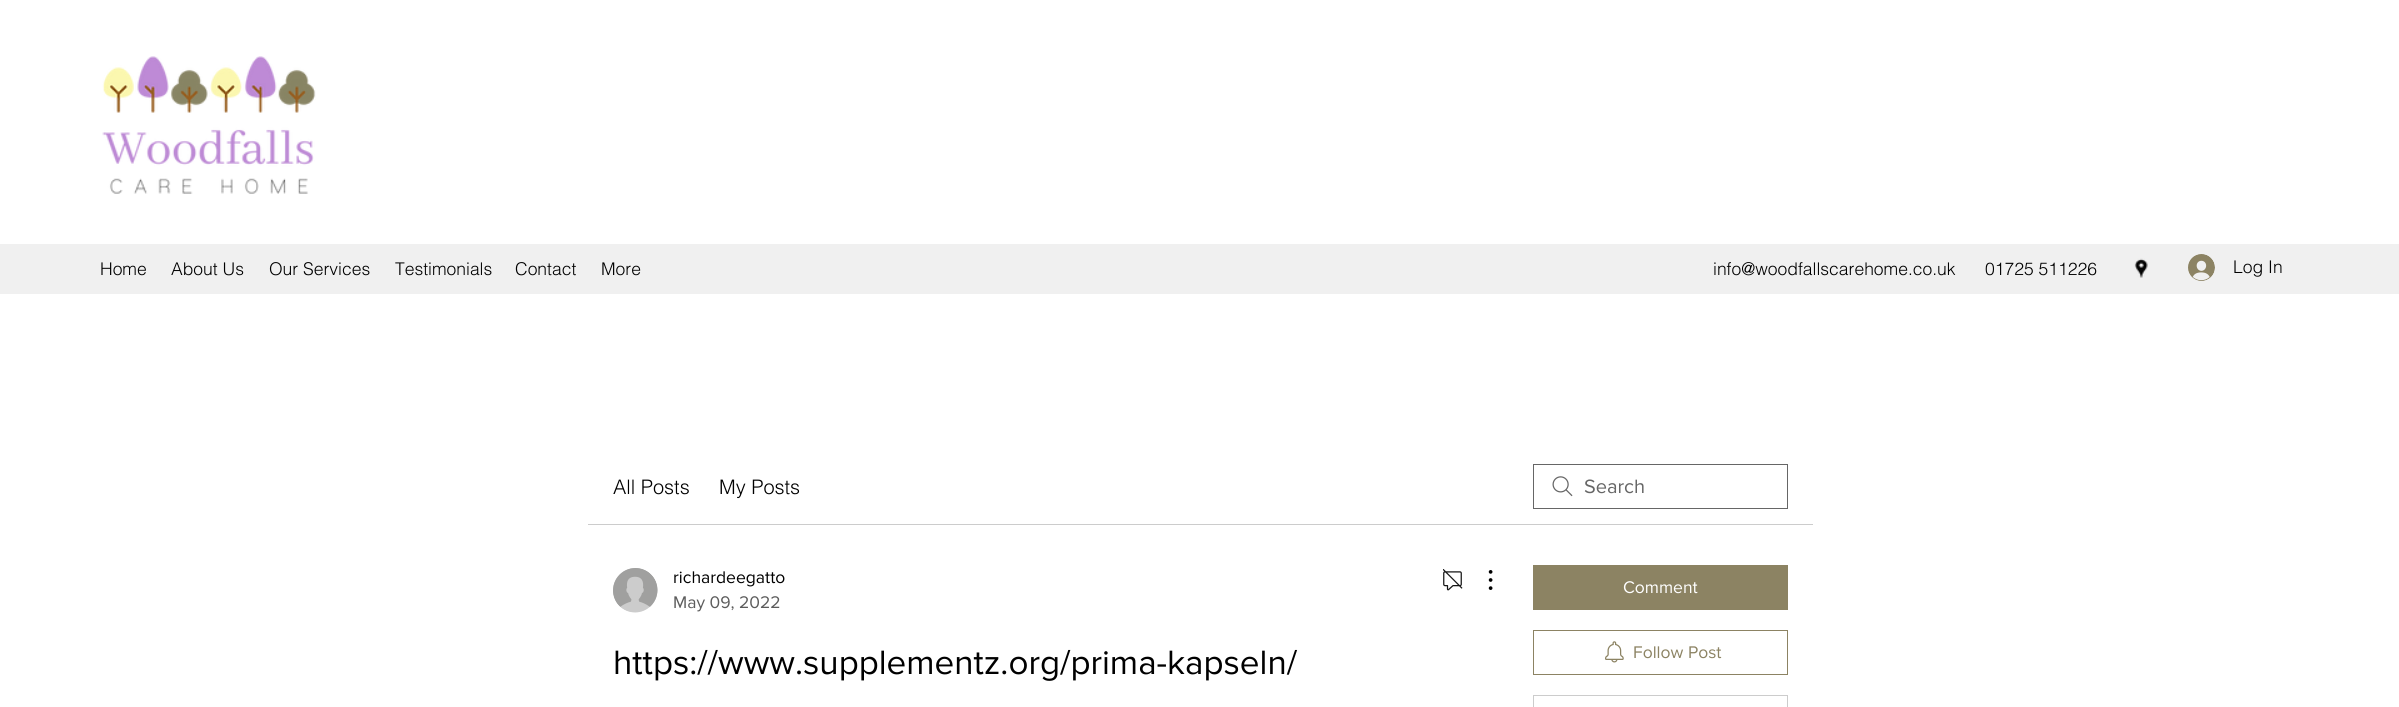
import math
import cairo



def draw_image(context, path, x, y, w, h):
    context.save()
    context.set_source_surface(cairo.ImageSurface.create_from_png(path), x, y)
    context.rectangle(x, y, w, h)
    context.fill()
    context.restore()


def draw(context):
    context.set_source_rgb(1, 1, 1)
    context.paint()
    draw_image(context, "images/1.png", 102, 56, 214, 138)
    context.set_source_rgb(240 / 255, 240 / 255, 240 / 255)
    context.rectangle(0, 244, 2399, 50)
    context.fill()
    draw_image(context, "images/2.png", 2134, 258, 14, 20)
    draw_image(context, "images/3.png", 2188, 254, 27, 27)
    context.set_source_rgb(204 / 255, 204 / 255, 204 / 255)
    context.rectangle(588, 524, 1225, 1)
    context.fill()
    draw_image(context, "images/4.png", 1552, 476, 21, 21)
    context.rectangle(1533.5, 464.5, 254, 44)
    context.set_source_rgb(102 / 255, 102 / 255, 102 / 255)
    context.set_line_width(1)
    context.stroke()
    draw_image(context, "images/5.png", 613, 568, 45, 45)
    draw_image(context, "images/6.png", 1443, 569, 20, 22)
    draw_image(context, "images/7.png", 1488, 570, 5, 20)
    context.set_source_rgb(140 / 255, 131 / 255, 99 / 255)
    context.rectangle(1533, 565, 255, 45)
    context.fill()
    context.rectangle(1533.5, 630.5, 254, 44)
    context.stroke()
    draw_image(context, "images/8.png", 1605, 641, 19, 22)
    context.rectangle(1533.5, 695.5, 254, 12)
    context.set_source_rgb(204 / 255, 204 / 255, 204 / 255)
    context.stroke()
    context.select_font_face("helvetica Light")
    context.set_font_size(17.5)
    context.set_source_rgb(0, 0, 0)
    context.move_to(100, 275)
    context.show_text("Home")
    context.move_to(171, 275)
    context.show_text("About Us")
    context.move_to(269, 275)
    context.show_text("Our Services")
    context.move_to(395, 275)
    context.show_text("Testimonials")
    context.move_to(515, 275)
    context.show_text("Contact")
    context.move_to(601, 275)
    context.show_text("More")
    context.move_to(1713, 275)
    context.show_text("info@woodfallscarehome.co.uk")
    context.move_to(1985, 275)
    context.show_text("01725 511226")
    context.move_to(2233, 273)
    context.show_text("Log In")
    context.set_font_size(20)
    context.move_to(613, 494)
    context.show_text("All Posts")
    context.move_to(719, 494)
    context.show_text("My Posts")
    context.select_font_face("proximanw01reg")
    context.set_source_rgb(102 / 255, 102 / 255, 102 / 255)
    context.move_to(1584, 493)
    context.show_text("Search")
    context.set_font_size(17.5)
    context.set_source_rgb(0, 0, 0)
    context.move_to(673, 583)
    context.show_text("richardeegatto")
    context.set_source_rgb(92 / 255, 92 / 255, 92 / 255)
    context.move_to(673, 608)
    context.show_text("May 09, 2022")
    context.set_font_size(35)
    context.set_source_rgb(0, 0, 0)
    context.move_to(613, 674)
    context.show_text("https://www.supplementz.org/prima-kapseln/")
    context.set_font_size(17.5)
    context.set_source_rgb(1, 1, 1)
    context.move_to(1623, 593)
    context.show_text("Comment")
    context.set_source_rgb(140 / 255, 131 / 255, 99 / 255)
    context.move_to(1633, 658)
    context.show_text("Follow Post")


surface = cairo.ImageSurface(cairo.Format.RGB24, 2399, 707)
context = cairo.Context(surface)
options = cairo.FontOptions()
options.set_hint_metrics(cairo.HintMetrics.OFF)
options.set_hint_style(cairo.HintStyle.NONE)
context.set_font_options(options)
context.set_miter_limit(4)
draw(context)
surface.write_to_png("out.png")
